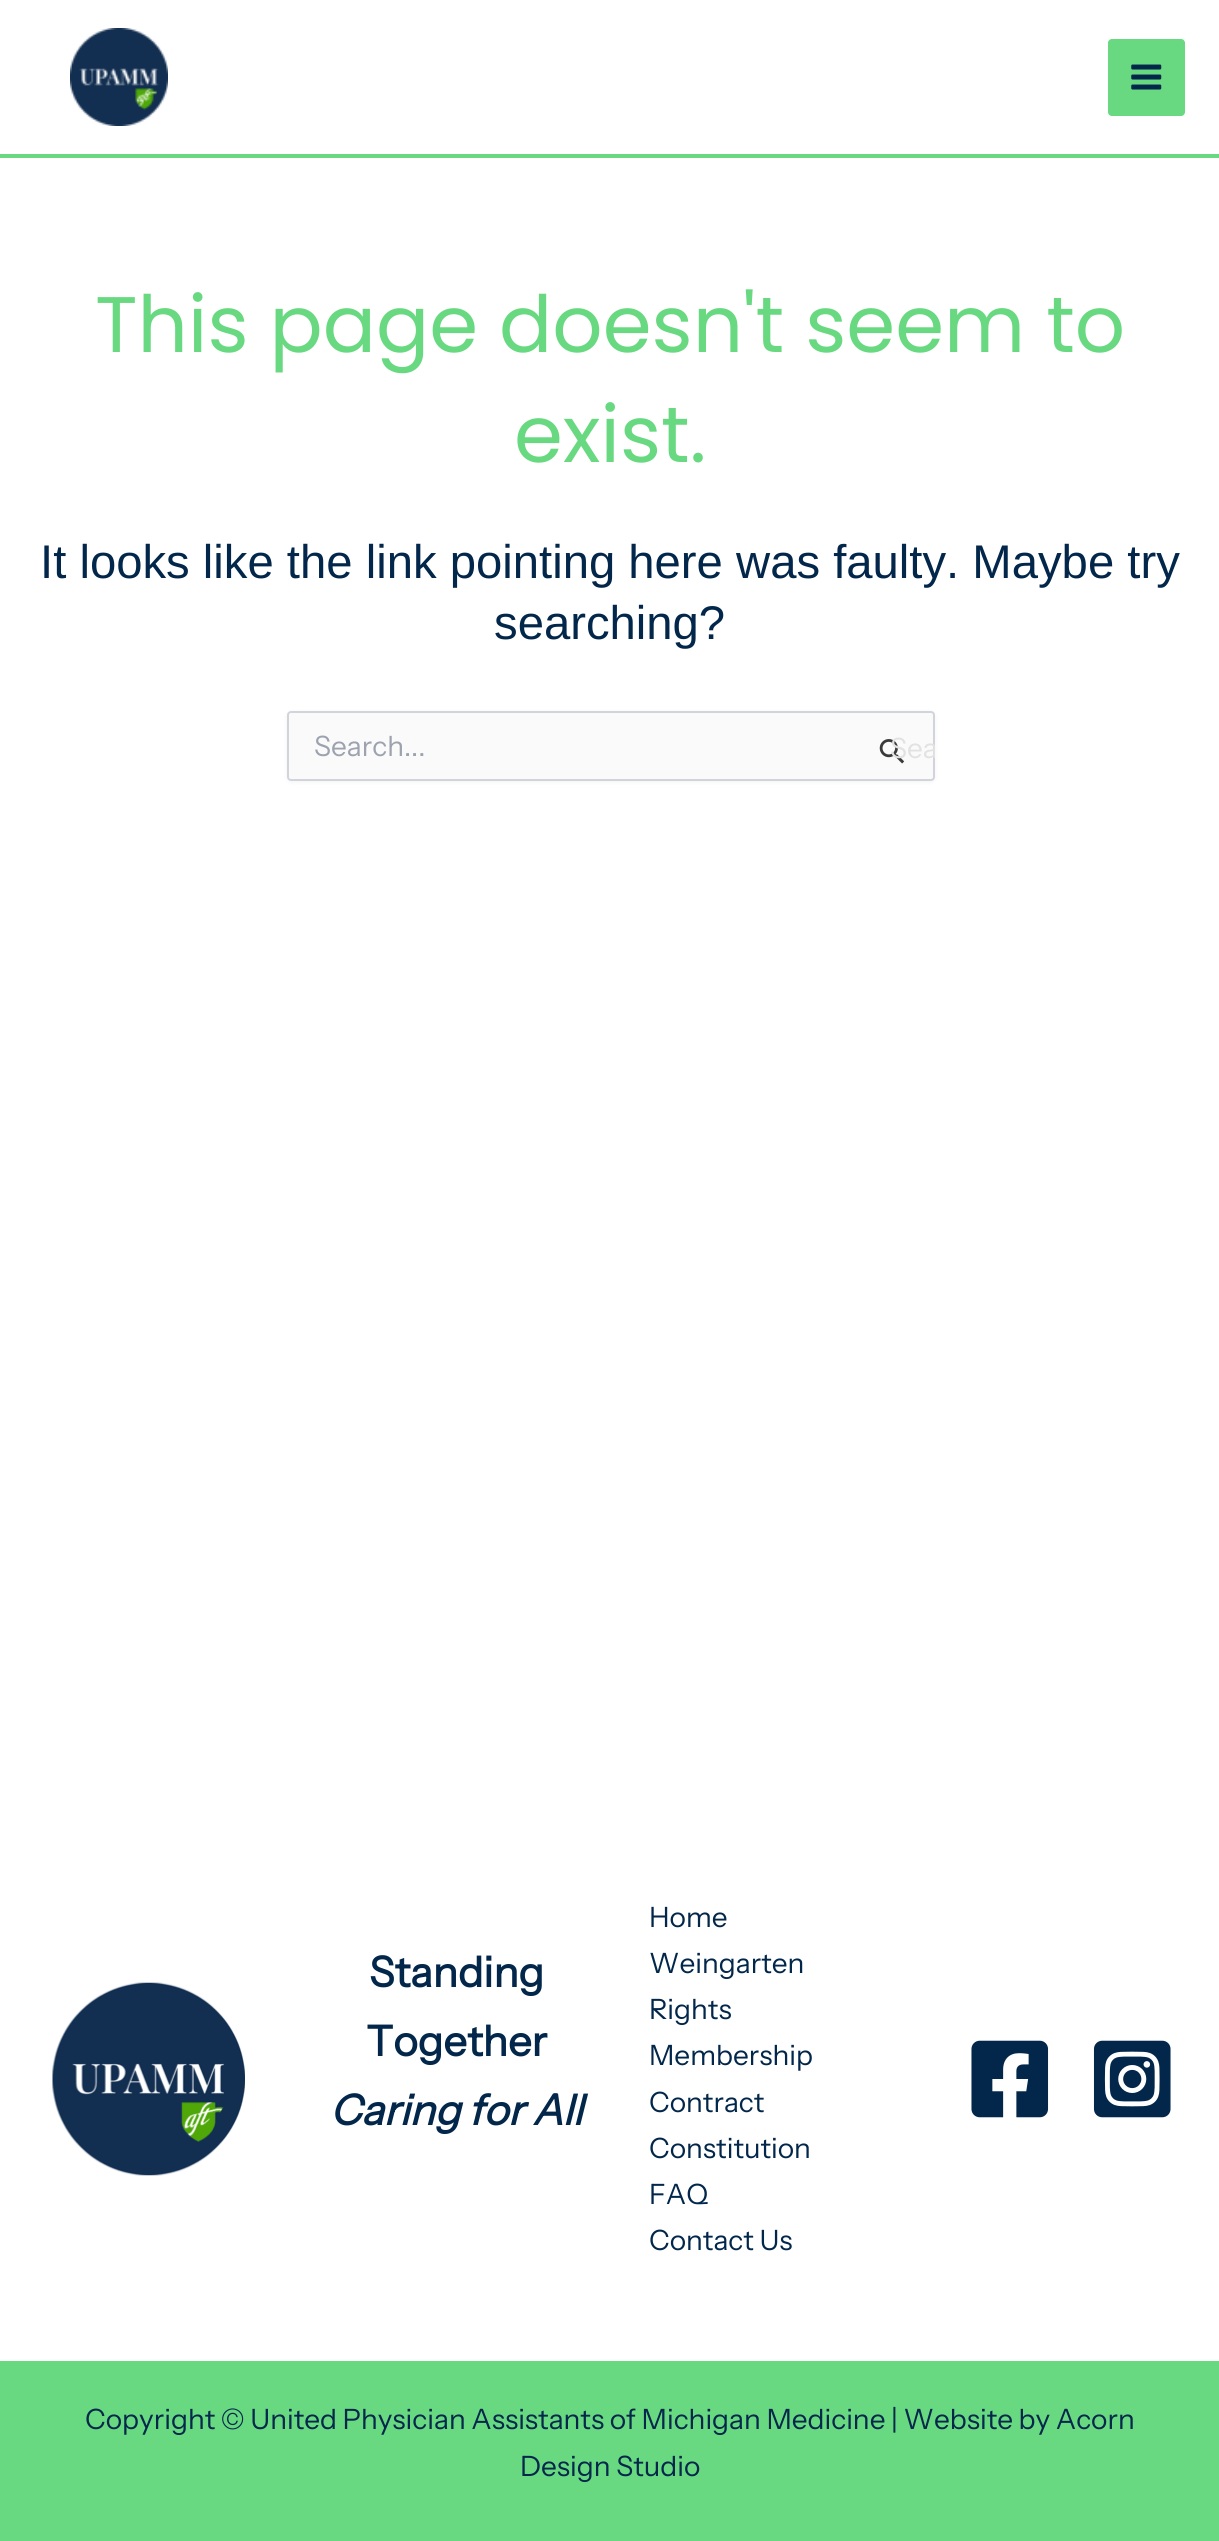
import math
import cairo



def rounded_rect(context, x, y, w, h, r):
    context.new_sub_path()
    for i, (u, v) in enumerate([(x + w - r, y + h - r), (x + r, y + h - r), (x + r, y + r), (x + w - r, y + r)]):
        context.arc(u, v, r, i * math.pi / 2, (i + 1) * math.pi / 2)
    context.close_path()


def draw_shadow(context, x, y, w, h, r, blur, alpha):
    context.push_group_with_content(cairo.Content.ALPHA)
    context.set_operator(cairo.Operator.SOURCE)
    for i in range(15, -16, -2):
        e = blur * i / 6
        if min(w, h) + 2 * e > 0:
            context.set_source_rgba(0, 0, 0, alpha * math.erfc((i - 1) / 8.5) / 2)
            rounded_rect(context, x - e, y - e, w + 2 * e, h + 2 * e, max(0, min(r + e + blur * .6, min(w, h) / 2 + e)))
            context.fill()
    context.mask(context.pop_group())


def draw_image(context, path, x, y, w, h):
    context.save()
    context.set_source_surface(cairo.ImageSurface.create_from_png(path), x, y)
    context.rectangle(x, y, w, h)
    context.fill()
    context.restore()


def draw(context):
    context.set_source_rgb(1, 1, 1)
    context.paint()
    context.set_source_rgb(104 / 255, 217 / 255, 128 / 255)
    context.rectangle(0, 154, 1219, 4)
    context.fill()
    draw_image(context, "images/1.png", 70, 28, 98, 98)
    rounded_rect(context, 1108, 39, 77, 77, 4)
    context.fill()
    draw_image(context, "images/2.png", 1131, 64, 31, 26)
    context.set_source_rgb(0, 0, 0)
    draw_shadow(context, 287, 712, 648, 70, 4, 2, 0.05)
    context.set_source_rgb(250 / 255, 250 / 255, 250 / 255)
    rounded_rect(context, 288, 712, 646, 68, 3)
    context.fill_preserve()
    context.set_source_rgb(209 / 255, 213 / 255, 219 / 255)
    context.stroke()
    draw_image(context, "images/3.png", 879, 739, 26, 25)
    draw_image(context, "images/4.png", 52, 1982, 193, 194)
    draw_image(context, "images/5.png", 971, 2040, 78, 78)
    draw_image(context, "images/6.png", 1093, 2040, 78, 78)
    context.set_source_rgb(104 / 255, 217 / 255, 128 / 255)
    context.rectangle(0, 2361, 1219, 180)
    context.fill()
    context.select_font_face("Poppins")
    context.set_font_size(78.75)
    context.move_to(95, 352)
    context.show_text("This page doesn't seem to")
    context.move_to(514, 462)
    context.show_text("exist.")
    context.select_font_face("Liberation Sans")
    context.set_font_size(47.25)
    context.set_source_rgb(2 / 255, 39 / 255, 75 / 255)
    context.move_to(40, 578)
    context.show_text("It looks like the link pointing here was faulty. Maybe try")
    context.move_to(494, 639)
    context.show_text("searching?")
    context.select_font_face("Instrument Sans")
    context.set_font_size(28)
    context.set_source_rgb(156 / 255, 163 / 255, 175 / 255)
    context.move_to(314, 756)
    context.show_text("Search...")
    context.save()
    rounded_rect(context, 856, 711, 79, 73, 4)
    context.clip()
    context.set_source_rgb(226 / 255, 226 / 255, 227 / 255)
    context.move_to(890, 758)
    context.show_text("Sea")
    context.restore()
    context.select_font_face("Instrument Sans", cairo.FontSlant.NORMAL, cairo.FontWeight.BOLD)
    context.set_font_size(42)
    context.set_source_rgb(2 / 255, 39 / 255, 75 / 255)
    context.move_to(369, 1987)
    context.show_text("Standing")
    context.move_to(366, 2056)
    context.show_text("Together")
    context.select_font_face("Instrument Sans", cairo.FontSlant.ITALIC, cairo.FontWeight.BOLD)
    context.move_to(330, 2125)
    context.show_text("Caring for All")
    context.select_font_face("Instrument Sans")
    context.set_font_size(28)
    context.move_to(649, 1927)
    context.show_text("Home")
    context.move_to(649, 1973)
    context.show_text("Weingarten")
    context.move_to(649, 2019)
    context.show_text("Rights")
    context.move_to(649, 2065)
    context.show_text("Membership")
    context.move_to(649, 2112)
    context.show_text("Contract")
    context.move_to(649, 2158)
    context.show_text("Constitution")
    context.move_to(649, 2204)
    context.show_text("FAQ")
    context.move_to(649, 2250)
    context.show_text("Contact Us")
    context.move_to(85, 2429)
    context.show_text("Copyright © United Physician Assistants of Michigan Medicine | Website by Acorn")
    context.move_to(520, 2476)
    context.show_text("Design Studio")


surface = cairo.ImageSurface(cairo.Format.RGB24, 1219, 2541)
context = cairo.Context(surface)
options = cairo.FontOptions()
options.set_hint_metrics(cairo.HintMetrics.OFF)
options.set_hint_style(cairo.HintStyle.NONE)
context.set_font_options(options)
context.set_miter_limit(4)
draw(context)
surface.write_to_png("out.png")
